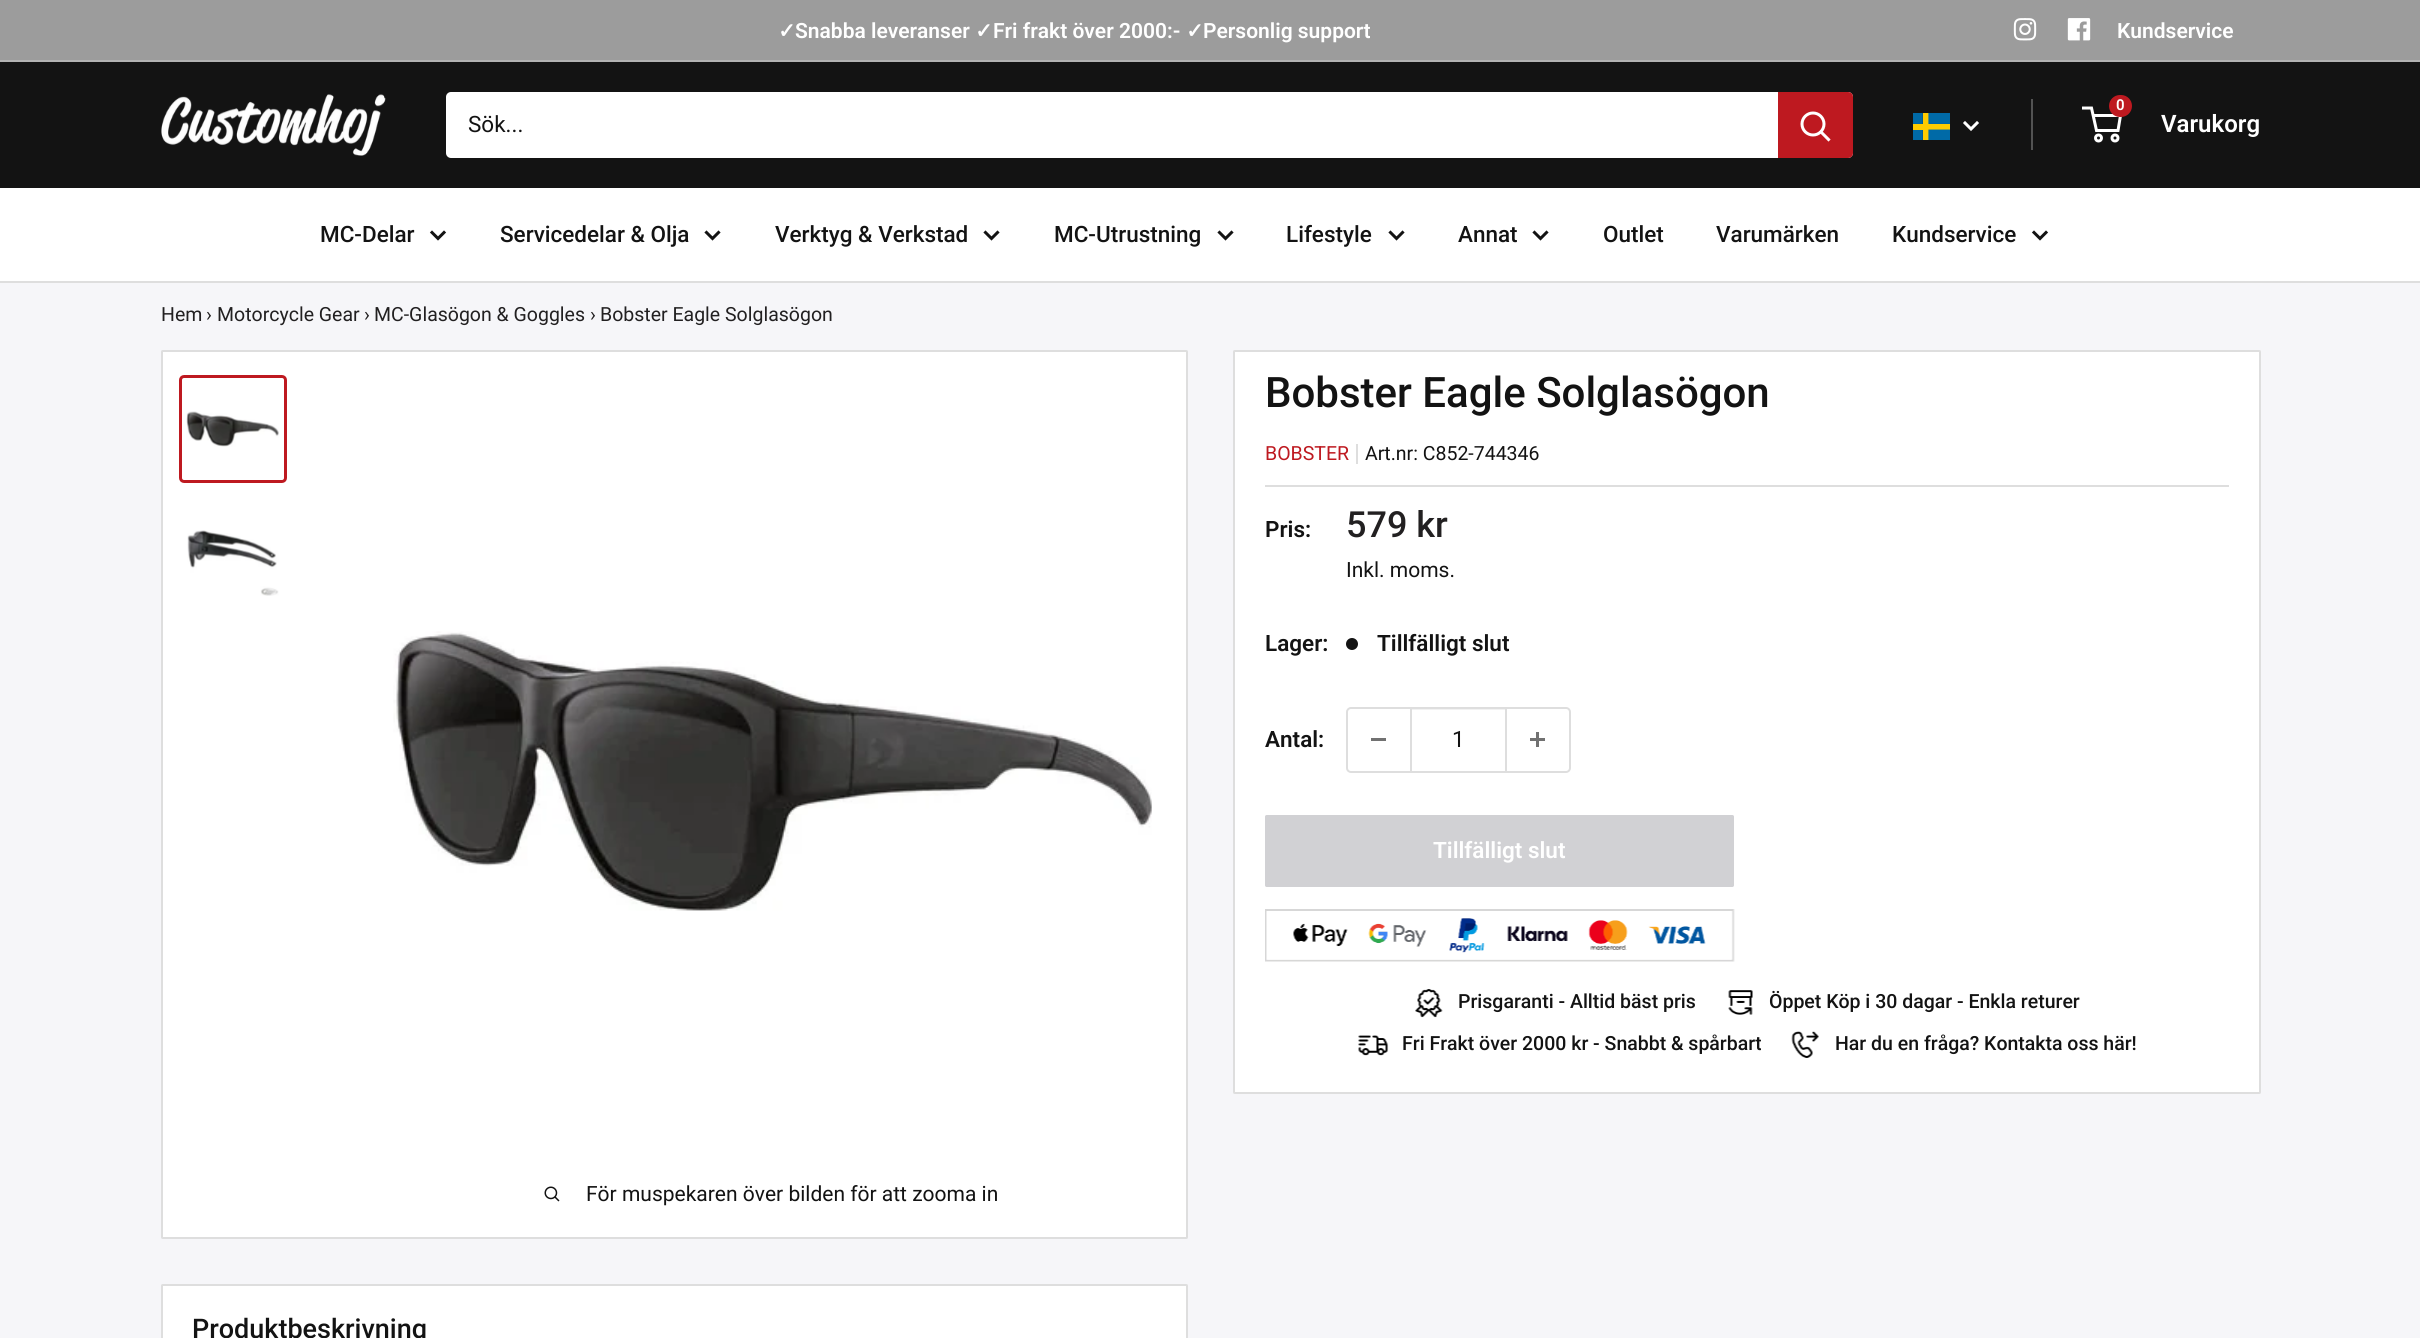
import math
import cairo



def rounded_rect(context, x, y, w, h, r):
    context.new_sub_path()
    for i, (u, v) in enumerate([(x + w - r, y + h - r), (x + r, y + h - r), (x + r, y + r), (x + w - r, y + r)]):
        context.arc(u, v, r, i * math.pi / 2, (i + 1) * math.pi / 2)
    context.close_path()


def draw_image(context, path, x, y, w, h):
    context.save()
    context.set_source_surface(cairo.ImageSurface.create_from_png(path), x, y)
    context.rectangle(x, y, w, h)
    context.fill()
    context.restore()


def draw(context):
    context.set_source_rgb(246 / 255, 246 / 255, 249 / 255)
    context.paint()
    context.set_source_rgb(156 / 255, 156 / 255, 156 / 255)
    context.rectangle(0, 0, 2420, 60)
    context.fill()
    context.set_source_rgb(179 / 255, 179 / 255, 179 / 255)
    context.rectangle(0, 60, 2420, 2)
    context.fill()
    draw_image(context, "images/1.png", 2013, 18, 24, 23)
    draw_image(context, "images/2.png", 2067, 18, 24, 23)
    context.set_source_rgb(19 / 255, 19 / 255, 19 / 255)
    context.rectangle(0, 62, 2420, 126)
    context.fill()
    draw_image(context, "images/3.png", 161, 94, 225, 62)
    context.set_source_rgb(1, 1, 1)
    rounded_rect(context, 446, 92, 1407, 66, 5)
    context.fill()
    context.set_source_rgb(190 / 255, 25 / 255, 32 / 255)
    context.new_path()
    context.move_to(1778, 92)
    context.line_to(1848, 92)
    context.curve_to(1851, 92, 1853, 94, 1853, 97)
    context.line_to(1853, 153)
    context.curve_to(1853, 156, 1851, 158, 1848, 158)
    context.line_to(1778, 158)
    context.close_path()
    context.fill()
    context.new_path()
    context.move_to(1828.5, 139.5)
    context.line_to(1821, 132)
    context.set_source_rgb(1, 1, 1)
    context.set_line_width(3)
    context.set_line_cap(cairo.LineCap.SQUARE)
    context.stroke()
    context.arc(1813, 124, 11, 0, 2 * math.pi)
    context.set_line_cap(cairo.LineCap.BUTT)
    context.stroke()
    draw_image(context, "images/4.png", 1913, 113, 37, 27)
    context.new_path()
    context.move_to(1977, 123)
    context.line_to(1971, 129)
    context.line_to(1965, 123)
    context.set_line_cap(cairo.LineCap.SQUARE)
    context.stroke()
    context.set_source_rgb(83 / 255, 83 / 255, 83 / 255)
    context.rectangle(2031, 99, 2, 51)
    context.fill()
    context.new_path()
    context.move_to(2093, 115.5)
    context.line_to(2120.5, 115.5)
    context.line_to(2118, 130.5)
    context.line_to(2096.5, 130.5)
    context.line_to(2091.5, 108)
    context.line_to(2082, 108)
    context.set_source_rgb(1, 1, 1)
    context.set_line_cap(cairo.LineCap.BUTT)
    context.stroke()
    context.set_source_rgb(190 / 255, 25 / 255, 32 / 255)
    rounded_rect(context, 2109, 95, 23, 22, 11)
    context.fill()
    context.arc(2098.5, 138, 3, 0, 2 * math.pi)
    context.set_source_rgb(1, 1, 1)
    context.stroke()
    context.arc(2115, 138, 3, 0, 2 * math.pi)
    context.stroke()
    context.rectangle(0, 188, 2420, 93)
    context.fill()
    context.set_source_rgb(222 / 255, 222 / 255, 222 / 255)
    context.rectangle(0, 281, 2420, 2)
    context.fill()
    context.new_path()
    context.move_to(444, 232.5)
    context.line_to(438, 238.5)
    context.line_to(432, 232.5)
    context.set_source_rgb(19 / 255, 19 / 255, 19 / 255)
    context.set_line_cap(cairo.LineCap.SQUARE)
    context.stroke()
    context.new_path()
    context.move_to(718.5, 232.5)
    context.line_to(712.5, 238.5)
    context.line_to(706.5, 232.5)
    context.stroke()
    context.new_path()
    context.move_to(997.5, 232.5)
    context.line_to(991.5, 238.5)
    context.line_to(985.5, 232.5)
    context.stroke()
    context.new_path()
    context.move_to(1231.5, 232.5)
    context.line_to(1225.5, 238.5)
    context.line_to(1219.5, 232.5)
    context.stroke()
    context.new_path()
    context.move_to(1402.5, 232.5)
    context.line_to(1396.5, 238.5)
    context.line_to(1390.5, 232.5)
    context.stroke()
    context.new_path()
    context.move_to(1546.5, 232.5)
    context.line_to(1540.5, 238.5)
    context.line_to(1534.5, 232.5)
    context.stroke()
    context.new_path()
    context.move_to(2046, 232.5)
    context.line_to(2040, 238.5)
    context.line_to(2034, 232.5)
    context.stroke()
    context.set_source_rgb(1, 1, 1)
    rounded_rect(context, 1234, 351, 1026, 742, 0.5)
    context.fill_preserve()
    context.set_source_rgb(222 / 255, 222 / 255, 222 / 255)
    context.set_line_width(2)
    context.set_line_cap(cairo.LineCap.BUTT)
    context.stroke()
    context.rectangle(1356, 444, 2, 20)
    context.fill()
    context.rectangle(1265, 485, 964, 2)
    context.fill()
    context.set_source_rgb(19 / 255, 19 / 255, 19 / 255)
    context.arc(1352, 644, 6, 0, 2 * math.pi)
    context.fill()
    rounded_rect(context, 1347, 708, 223, 64, 4)
    context.set_source_rgb(222 / 255, 222 / 255, 222 / 255)
    context.stroke()
    context.set_source_rgb(113 / 255, 113 / 255, 113 / 255)
    context.rectangle(1371, 738, 15, 3)
    context.fill()
    context.set_source_rgba(222 / 255, 222 / 255, 222 / 255, 0.4)
    context.rectangle(1412, 709, 93, 1)
    context.fill()
    context.set_source_rgb(222 / 255, 222 / 255, 222 / 255)
    context.rectangle(1505, 708, 2, 63)
    context.fill()
    context.rectangle(1410, 708, 2, 63)
    context.fill()
    draw_image(context, "images/5.png", 1530, 732, 15, 15)
    context.set_source_rgb(209 / 255, 209 / 255, 212 / 255)
    rounded_rect(context, 1266, 816, 467, 70, 0.5)
    context.fill_preserve()
    context.stroke()
    draw_image(context, "images/6.png", 1265, 909, 470, 53)
    draw_image(context, "images/7.png", 1415, 989, 28, 29)
    draw_image(context, "images/8.png", 1728, 990, 25, 25)
    draw_image(context, "images/9.png", 1358, 1035, 31, 21)
    draw_image(context, "images/10.png", 1791, 1031, 28, 27)
    context.set_source_rgb(1, 1, 1)
    rounded_rect(context, 162, 351, 1025, 887, 0.5)
    context.fill_preserve()
    context.set_source_rgb(222 / 255, 222 / 255, 222 / 255)
    context.stroke()
    rounded_rect(context, 180.5, 376.5, 105, 105, 3.5)
    context.set_source_rgb(190 / 255, 25 / 255, 32 / 255)
    context.set_line_width(3)
    context.stroke()
    draw_image(context, "images/11.png", 186, 411, 93, 36)
    draw_image(context, "images/12.png", 187, 530, 92, 66)
    draw_image(context, "images/13.png", 393, 631, 759, 280)
    draw_image(context, "images/14.png", 544, 1186, 16, 16)
    context.set_source_rgb(1, 1, 1)
    rounded_rect(context, 162, 1285, 1025, 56, 0.5)
    context.fill_preserve()
    context.set_source_rgb(222 / 255, 222 / 255, 222 / 255)
    context.set_line_width(2)
    context.stroke()
    context.select_font_face("DejaVu Sans", cairo.FontSlant.NORMAL, cairo.FontWeight.BOLD)
    context.set_font_size(21)
    context.set_source_rgb(1, 1, 1)
    context.move_to(778, 38)
    context.show_text("✓")
    context.select_font_face("Roboto SemiBold")
    context.move_to(795, 38)
    context.show_text("Snabba leveranser")
    context.select_font_face("DejaVu Sans", cairo.FontSlant.NORMAL, cairo.FontWeight.BOLD)
    context.move_to(975, 38)
    context.show_text("✓")
    context.select_font_face("Roboto SemiBold")
    context.move_to(993, 38)
    context.show_text("Fri frakt över 2000:-")
    context.select_font_face("DejaVu Sans", cairo.FontSlant.NORMAL, cairo.FontWeight.BOLD)
    context.move_to(1186, 38)
    context.show_text("✓")
    context.select_font_face("Roboto SemiBold")
    context.move_to(1203, 38)
    context.show_text("Personlig support")
    context.move_to(2117, 38)
    context.show_text("Kundservice")
    context.select_font_face("Roboto")
    context.set_font_size(22.5)
    context.set_source_rgb(19 / 255, 19 / 255, 19 / 255)
    context.move_to(468, 132)
    context.show_text("Sök...")
    context.select_font_face("Roboto SemiBold")
    context.set_font_size(15)
    context.set_source_rgb(1, 1, 1)
    context.move_to(2116, 110)
    context.show_text("0")
    context.set_font_size(24)
    context.move_to(2161, 132)
    context.show_text("Varukorg")
    context.select_font_face("Roboto Medium")
    context.set_font_size(22.5)
    context.set_source_rgb(19 / 255, 19 / 255, 19 / 255)
    context.move_to(320, 242)
    context.show_text("MC-Delar")
    context.move_to(500, 242)
    context.show_text("Servicedelar & Olja")
    context.move_to(775, 242)
    context.show_text("Verktyg & Verkstad")
    context.move_to(1054, 242)
    context.show_text("MC-Utrustning")
    context.move_to(1286, 242)
    context.show_text("Lifestyle")
    context.move_to(1458, 242)
    context.show_text("Annat")
    context.move_to(1603, 242)
    context.show_text("Outlet")
    context.move_to(1716, 242)
    context.show_text("Varumärken")
    context.move_to(1892, 242)
    context.show_text("Kundservice")
    context.select_font_face("Roboto")
    context.set_font_size(19.5)
    context.set_source_rgb(34 / 255, 32 / 255, 33 / 255)
    context.move_to(161, 321)
    context.show_text("Hem")
    context.move_to(206, 321)
    context.show_text("›")
    context.move_to(217, 321)
    context.show_text("Motorcycle Gear")
    context.move_to(364, 321)
    context.show_text("›")
    context.move_to(374, 321)
    context.show_text("MC-Glasögon & Goggles")
    context.move_to(590, 321)
    context.show_text("›")
    context.move_to(600, 321)
    context.show_text("Bobster Eagle Solglasögon")
    context.select_font_face("Roboto Medium")
    context.set_font_size(42)
    context.set_source_rgb(19 / 255, 19 / 255, 19 / 255)
    context.move_to(1265, 407)
    context.show_text("Bobster Eagle Solglasögon")
    context.select_font_face("Roboto")
    context.set_font_size(19.5)
    context.set_source_rgb(190 / 255, 25 / 255, 32 / 255)
    context.move_to(1265, 460)
    context.show_text("BOBSTER")
    context.set_source_rgb(19 / 255, 19 / 255, 19 / 255)
    context.move_to(1365, 460)
    context.show_text("Art.nr: C852-744346")
    context.select_font_face("Roboto SemiBold")
    context.set_font_size(22.5)
    context.move_to(1265, 537)
    context.show_text("Pris:")
    context.select_font_face("Roboto Medium")
    context.set_font_size(36)
    context.set_source_rgb(34 / 255, 32 / 255, 33 / 255)
    context.move_to(1346, 537)
    context.show_text("579 kr")
    context.select_font_face("Roboto")
    context.set_font_size(21)
    context.set_source_rgb(19 / 255, 19 / 255, 19 / 255)
    context.move_to(1346, 577)
    context.show_text("Inkl. moms.")
    context.select_font_face("Roboto SemiBold")
    context.set_font_size(22.5)
    context.move_to(1265, 651)
    context.show_text("Lager:")
    context.move_to(1377, 651)
    context.show_text("Tillfälligt slut")
    context.move_to(1265, 747)
    context.show_text("Antal:")
    context.select_font_face("Roboto")
    context.move_to(1452, 747)
    context.show_text("1")
    context.select_font_face("Roboto SemiBold")
    context.set_source_rgb(1, 1, 1)
    context.move_to(1433, 858)
    context.show_text("Tillfälligt slut")
    context.select_font_face("Roboto Medium")
    context.set_font_size(19.5)
    context.set_source_rgb(19 / 255, 19 / 255, 19 / 255)
    context.move_to(1458, 1008)
    context.show_text("Prisgaranti - Alltid bäst pris")
    context.move_to(1769, 1008)
    context.show_text("Öppet Köp i 30 dagar - Enkla returer")
    context.move_to(1402, 1050)
    context.show_text("Fri Frakt över 2000 kr - Snabbt & spårbart")
    context.move_to(1835, 1050)
    context.show_text("Har du en fråga? Kontakta oss här!")
    context.select_font_face("Roboto")
    context.set_font_size(21)
    context.move_to(586, 1201)
    context.show_text("För muspekaren över bilden för att zooma in")
    context.select_font_face("Roboto Medium")
    context.set_font_size(27)
    context.move_to(192, 1338)
    context.show_text("Produktbeskrivning")


surface = cairo.ImageSurface(cairo.Format.RGB24, 2420, 1338)
context = cairo.Context(surface)
options = cairo.FontOptions()
options.set_hint_metrics(cairo.HintMetrics.OFF)
options.set_hint_style(cairo.HintStyle.NONE)
context.set_font_options(options)
context.set_miter_limit(4)
draw(context)
surface.write_to_png("out.png")
